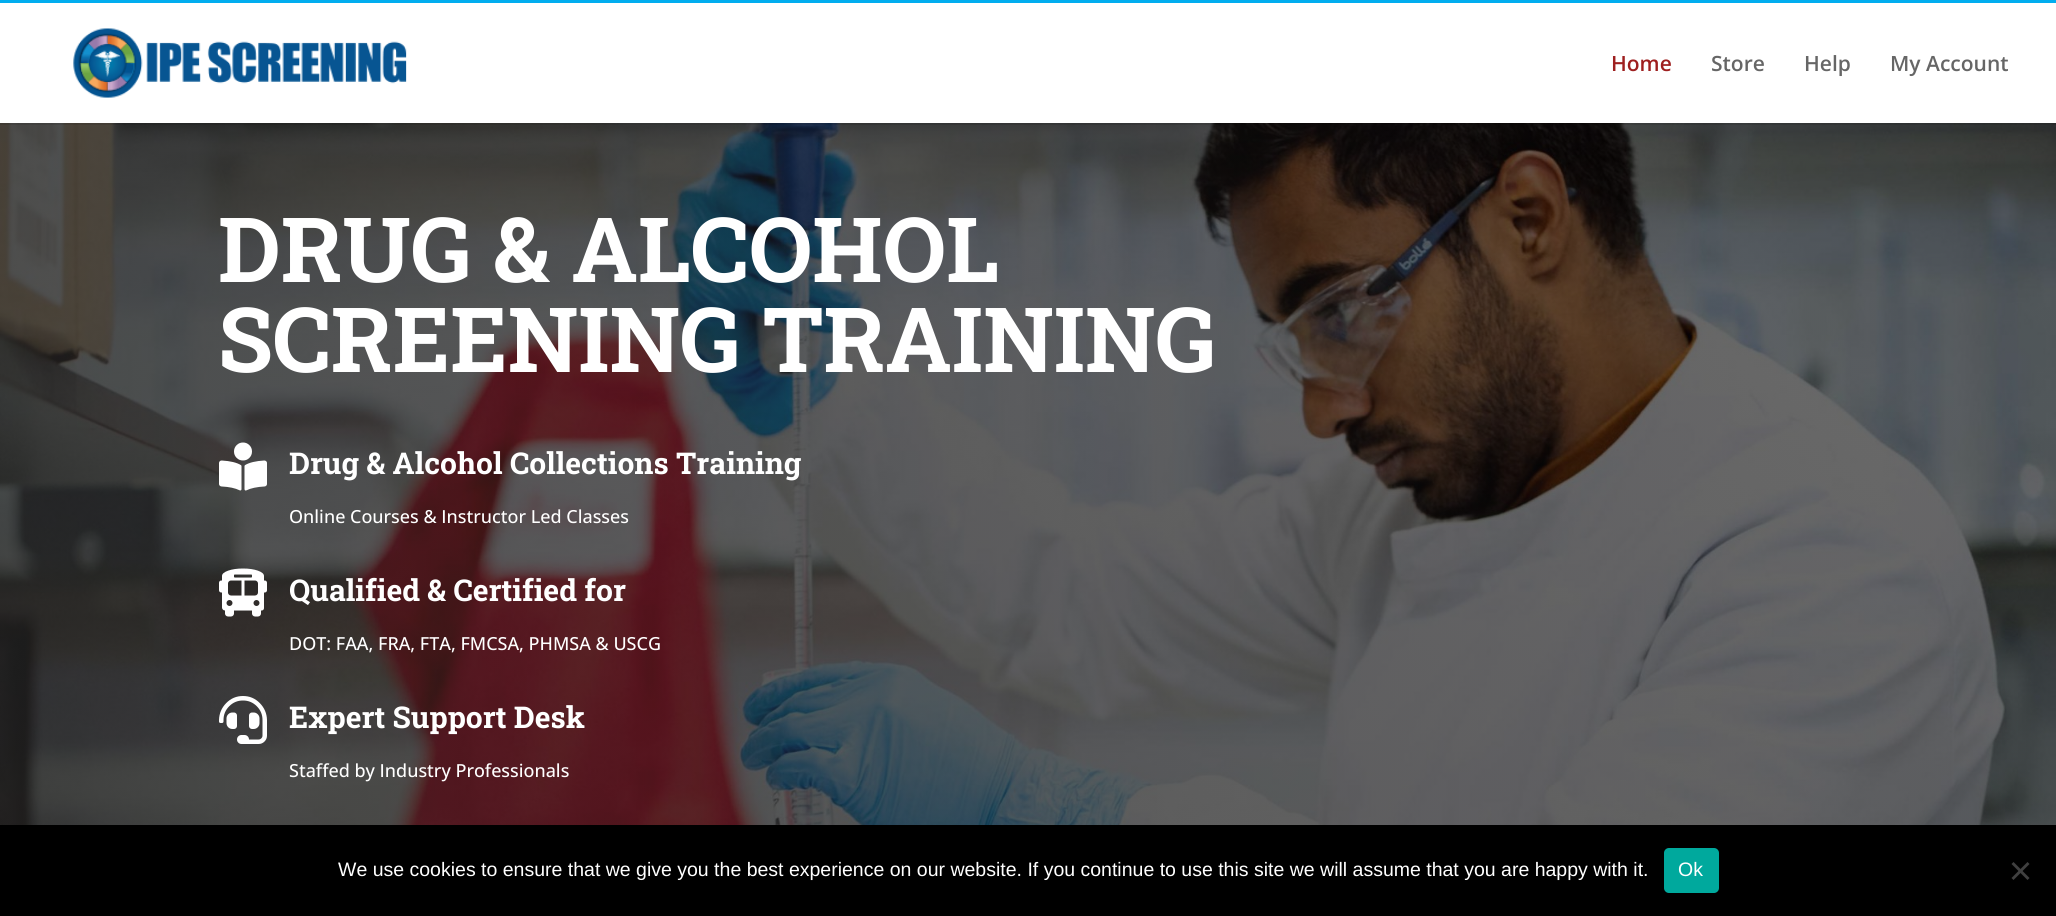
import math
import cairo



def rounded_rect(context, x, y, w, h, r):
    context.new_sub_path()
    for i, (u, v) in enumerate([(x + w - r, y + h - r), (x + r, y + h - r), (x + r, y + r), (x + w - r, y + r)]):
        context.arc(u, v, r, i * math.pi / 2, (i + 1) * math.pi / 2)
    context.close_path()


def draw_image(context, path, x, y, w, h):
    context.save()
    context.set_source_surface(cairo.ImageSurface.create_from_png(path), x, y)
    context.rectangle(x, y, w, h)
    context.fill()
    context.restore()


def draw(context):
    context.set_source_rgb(1, 1, 1)
    context.paint()
    draw_image(context, "images/2.png", 0, 123, 2056, 702)
    context.set_source_rgba(0, 0, 0, 0.1)
    context.new_path()
    context.move_to(0, 123)
    context.line_to(0, 125)
    context.line_to(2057, 125)
    context.line_to(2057, 2)
    context.line_to(2056, 2)
    context.line_to(2056, 123)
    context.close_path()
    context.fill()
    context.set_source_rgb(1 / 255, 173 / 255, 239 / 255)
    context.rectangle(0, 0, 2056, 3)
    context.fill()
    draw_image(context, "images/1.png", 73, 28, 334, 70)
    draw_image(context, "images/3.png", 219, 442, 48, 49)
    draw_image(context, "images/4.png", 219, 568, 48, 49)
    draw_image(context, "images/5.png", 219, 696, 48, 48)
    context.set_source_rgb(0, 0, 0)
    context.rectangle(0, 825, 2056, 91)
    context.fill()
    context.set_source_rgb(0, 169 / 255, 157 / 255)
    rounded_rect(context, 1664, 848, 55, 45, 5)
    context.fill()
    context.set_source_rgb(64 / 255, 64 / 255, 64 / 255)
    context.new_path()
    context.move_to(2027.5, 862)
    context.line_to(2029.5, 864)
    context.line_to(2013.5, 880)
    context.line_to(2011.5, 878)
    context.close_path()
    context.fill()
    context.new_path()
    context.move_to(2011.5, 864)
    context.line_to(2013.5, 862)
    context.line_to(2029.5, 878)
    context.line_to(2027.5, 880)
    context.close_path()
    context.fill()
    context.select_font_face("Open Sans SemiBold")
    context.set_font_size(21)
    context.set_source_rgb(158 / 255, 31 / 255, 31 / 255)
    context.move_to(1611, 71)
    context.show_text("Home")
    context.set_source_rgb(102 / 255, 102 / 255, 102 / 255)
    context.move_to(1711, 71)
    context.show_text("Store")
    context.move_to(1804, 71)
    context.show_text("Help")
    context.move_to(1890, 71)
    context.show_text("My Account")
    context.select_font_face("Roboto Slab", cairo.FontSlant.NORMAL, cairo.FontWeight.BOLD)
    context.set_font_size(90)
    context.set_source_rgb(1, 1, 1)
    context.move_to(218, 282)
    context.show_text("DRUG & ALCOHOL")
    context.move_to(218, 372)
    context.show_text("SCREENING TRAINING")
    context.set_font_size(30)
    context.move_to(289, 474)
    context.show_text("Drug & Alcohol Collections Training")
    context.select_font_face("Open Sans Medium")
    context.set_font_size(18)
    context.move_to(289, 523)
    context.show_text("Online Courses & Instructor Led Classes")
    context.select_font_face("Roboto Slab", cairo.FontSlant.NORMAL, cairo.FontWeight.BOLD)
    context.set_font_size(30)
    context.move_to(289, 601)
    context.show_text("Qualified & Certified for")
    context.select_font_face("Open Sans Medium")
    context.set_font_size(18)
    context.move_to(289, 650)
    context.show_text("DOT: FAA, FRA, FTA, FMCSA, PHMSA & USCG")
    context.select_font_face("Roboto Slab", cairo.FontSlant.NORMAL, cairo.FontWeight.BOLD)
    context.set_font_size(30)
    context.move_to(289, 728)
    context.show_text("Expert Support Desk")
    context.select_font_face("Open Sans Medium")
    context.set_font_size(18)
    context.move_to(289, 777)
    context.show_text("Staffed by Industry Professionals")
    context.select_font_face("Liberation Sans")
    context.set_font_size(19.5)
    context.move_to(338, 876)
    context.show_text("We use cookies to ensure that we give you the best experience on our website. If you continue to use this site we will assume that you are happy with it.")
    context.move_to(1678, 876)
    context.show_text("Ok")


surface = cairo.ImageSurface(cairo.Format.RGB24, 2056, 916)
context = cairo.Context(surface)
options = cairo.FontOptions()
options.set_hint_metrics(cairo.HintMetrics.OFF)
options.set_hint_style(cairo.HintStyle.NONE)
context.set_font_options(options)
context.set_miter_limit(4)
draw(context)
surface.write_to_png("out.png")
